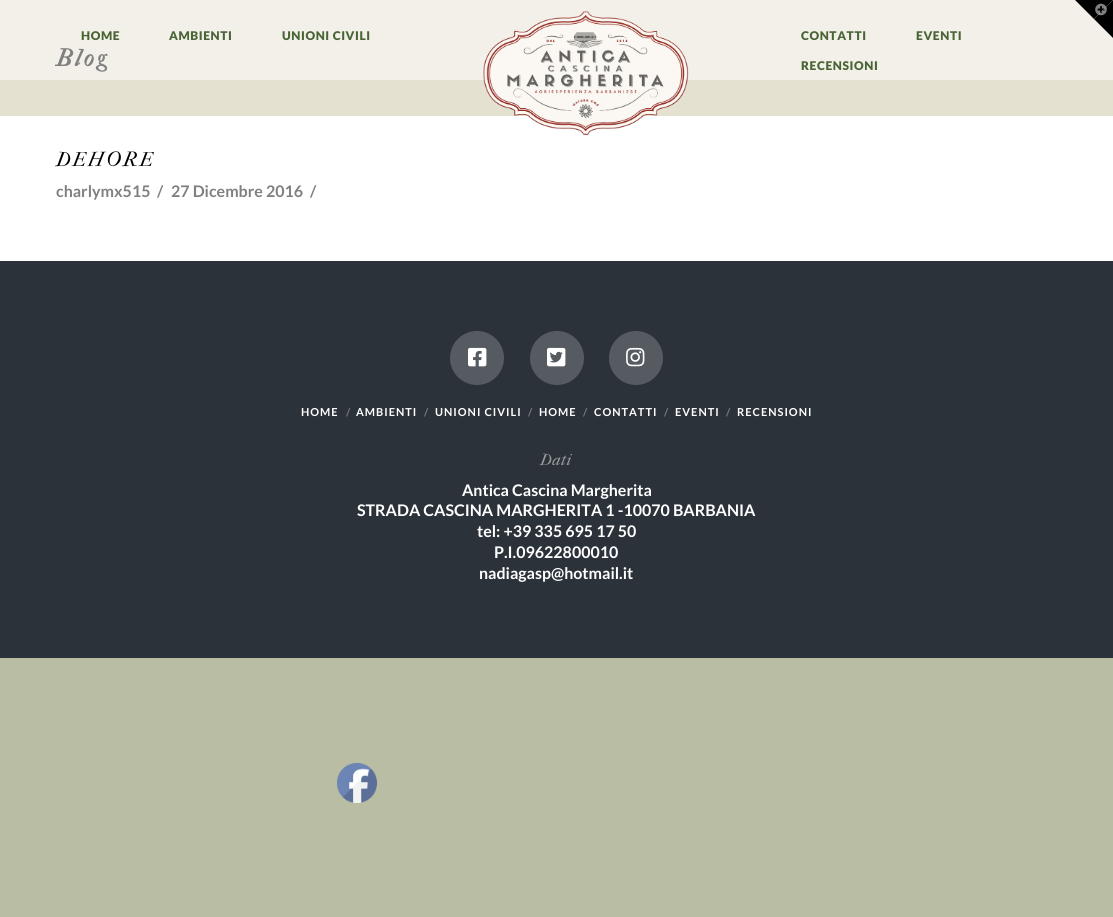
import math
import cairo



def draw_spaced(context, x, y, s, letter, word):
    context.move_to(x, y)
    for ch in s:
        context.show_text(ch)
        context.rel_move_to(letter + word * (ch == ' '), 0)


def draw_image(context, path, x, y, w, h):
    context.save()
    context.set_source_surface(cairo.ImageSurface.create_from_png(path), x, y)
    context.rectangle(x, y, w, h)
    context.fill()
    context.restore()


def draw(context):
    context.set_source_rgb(185 / 255, 189 / 255, 163 / 255)
    context.paint()
    context.set_source_rgb(242 / 255, 240 / 255, 232 / 255)
    context.rectangle(0, 0, 1113, 80)
    context.fill()
    context.set_source_rgb(0, 0, 0)
    context.new_path()
    context.move_to(1075, 0)
    context.line_to(1113, 0)
    context.line_to(1094, 19)
    context.close_path()
    context.fill()
    context.new_path()
    context.move_to(1113, 0)
    context.line_to(1113, 38)
    context.line_to(1094, 19)
    context.close_path()
    context.fill()
    draw_image(context, "images/1.png", 1095, 3, 12, 13)
    context.set_source_rgb(1, 1, 1)
    context.rectangle(0, 116, 1113, 145)
    context.fill()
    context.set_source_rgb(228 / 255, 225 / 255, 208 / 255)
    context.rectangle(0, 80, 1113, 36)
    context.fill()
    draw_image(context, "images/2.png", 483, 11, 206, 124)
    context.set_source_rgb(43 / 255, 50 / 255, 58 / 255)
    context.rectangle(0, 261, 1113, 397)
    context.fill()
    context.set_source_rgb(85 / 255, 91 / 255, 97 / 255)
    context.arc(477, 358, 27, 0, 2 * math.pi)
    context.fill()
    draw_image(context, "images/3.png", 468, 347, 19, 20)
    context.arc(557, 358, 27, 0, 2 * math.pi)
    context.fill()
    draw_image(context, "images/4.png", 547, 347, 19, 20)
    context.arc(636, 358, 27, 0, 2 * math.pi)
    context.fill()
    draw_image(context, "images/5.png", 626, 347, 19, 20)
    draw_image(context, "images/6.png", 337, 763, 40, 40)
    context.select_font_face("IM FELL French Canon", cairo.FontSlant.ITALIC, cairo.FontWeight.BOLD)
    context.set_font_size(24)
    context.set_source_rgb(128 / 255, 128 / 255, 128 / 255)
    draw_spaced(context, 56, 66, "Blog", 3, 0)
    context.select_font_face("Lato Black")
    context.set_font_size(12)
    context.set_source_rgb(73 / 255, 100 / 255, 53 / 255)
    draw_spaced(context, 81, 40, "HOME", 0.6, 0)
    draw_spaced(context, 169, 40, "AMBIENTI", 0.6, 0)
    draw_spaced(context, 282, 40, "UNIONI CIVILI", 0.6, 0)
    draw_spaced(context, 801, 40, "CONTATTI", 0.6, 0)
    draw_spaced(context, 916, 40, "EVENTI", 0.6, 0)
    draw_spaced(context, 801, 70, "RECENSIONI", 0.6, 0)
    context.select_font_face("IM FELL French Canon", cairo.FontSlant.ITALIC)
    context.set_font_size(20)
    context.set_source_rgb(0, 0, 0)
    draw_spaced(context, 56, 166, "DEHORE", 2, 0)
    context.select_font_face("Lato", cairo.FontSlant.NORMAL, cairo.FontWeight.BOLD)
    context.set_font_size(16)
    context.set_source_rgb(128 / 255, 128 / 255, 128 / 255)
    context.move_to(56, 197)
    context.show_text("charlymx515")
    context.move_to(157, 197)
    context.show_text("/")
    context.move_to(171, 197)
    context.show_text("27 Dicembre 2016")
    context.move_to(310, 197)
    context.show_text("/")
    context.set_font_size(11)
    context.set_source_rgb(1, 1, 1)
    draw_spaced(context, 301, 416, "HOME", 1, 0)
    context.set_source_rgb(117 / 255, 122 / 255, 127 / 255)
    context.move_to(346, 416)
    context.show_text("/")
    context.set_source_rgb(1, 1, 1)
    draw_spaced(context, 356, 416, "AMBIENTI", 1, 0)
    context.set_source_rgb(117 / 255, 122 / 255, 127 / 255)
    context.move_to(424, 416)
    context.show_text("/")
    context.set_source_rgb(1, 1, 1)
    draw_spaced(context, 435, 416, "UNIONI CIVILI", 1, 0)
    context.set_source_rgb(117 / 255, 122 / 255, 127 / 255)
    context.move_to(528, 416)
    context.show_text("/")
    context.set_source_rgb(1, 1, 1)
    draw_spaced(context, 539, 416, "HOME", 1, 0)
    context.set_source_rgb(117 / 255, 122 / 255, 127 / 255)
    context.move_to(583, 416)
    context.show_text("/")
    context.set_source_rgb(1, 1, 1)
    draw_spaced(context, 594, 416, "CONTATTI", 1, 0)
    context.set_source_rgb(117 / 255, 122 / 255, 127 / 255)
    context.move_to(664, 416)
    context.show_text("/")
    context.set_source_rgb(1, 1, 1)
    draw_spaced(context, 675, 416, "EVENTI", 1, 0)
    context.set_source_rgb(117 / 255, 122 / 255, 127 / 255)
    context.move_to(726, 416)
    context.show_text("/")
    context.set_source_rgb(1, 1, 1)
    draw_spaced(context, 737, 416, "RECENSIONI", 1, 0)
    context.select_font_face("IM FELL French Canon", cairo.FontSlant.ITALIC)
    context.set_font_size(16)
    context.set_source_rgb(157 / 255, 157 / 255, 157 / 255)
    draw_spaced(context, 540, 465, "Dati", 0.5, 0)
    context.select_font_face("Lato", cairo.FontSlant.NORMAL, cairo.FontWeight.BOLD)
    context.set_source_rgb(1, 1, 1)
    context.move_to(462, 496)
    context.show_text("Antica Cascina Margherita")
    context.move_to(357, 516)
    context.show_text("STRADA CASCINA MARGHERITA 1 -10070 BARBANIA")
    context.move_to(477, 537)
    context.show_text("tel: +39 335 695 17 50")
    context.move_to(494, 558)
    context.show_text("P.I.09622800010")
    context.move_to(479, 579)
    context.show_text("nadiagasp@hotmail.it")


surface = cairo.ImageSurface(cairo.Format.RGB24, 1113, 917)
context = cairo.Context(surface)
options = cairo.FontOptions()
options.set_hint_metrics(cairo.HintMetrics.OFF)
options.set_hint_style(cairo.HintStyle.NONE)
context.set_font_options(options)
context.set_miter_limit(4)
draw(context)
surface.write_to_png("out.png")
